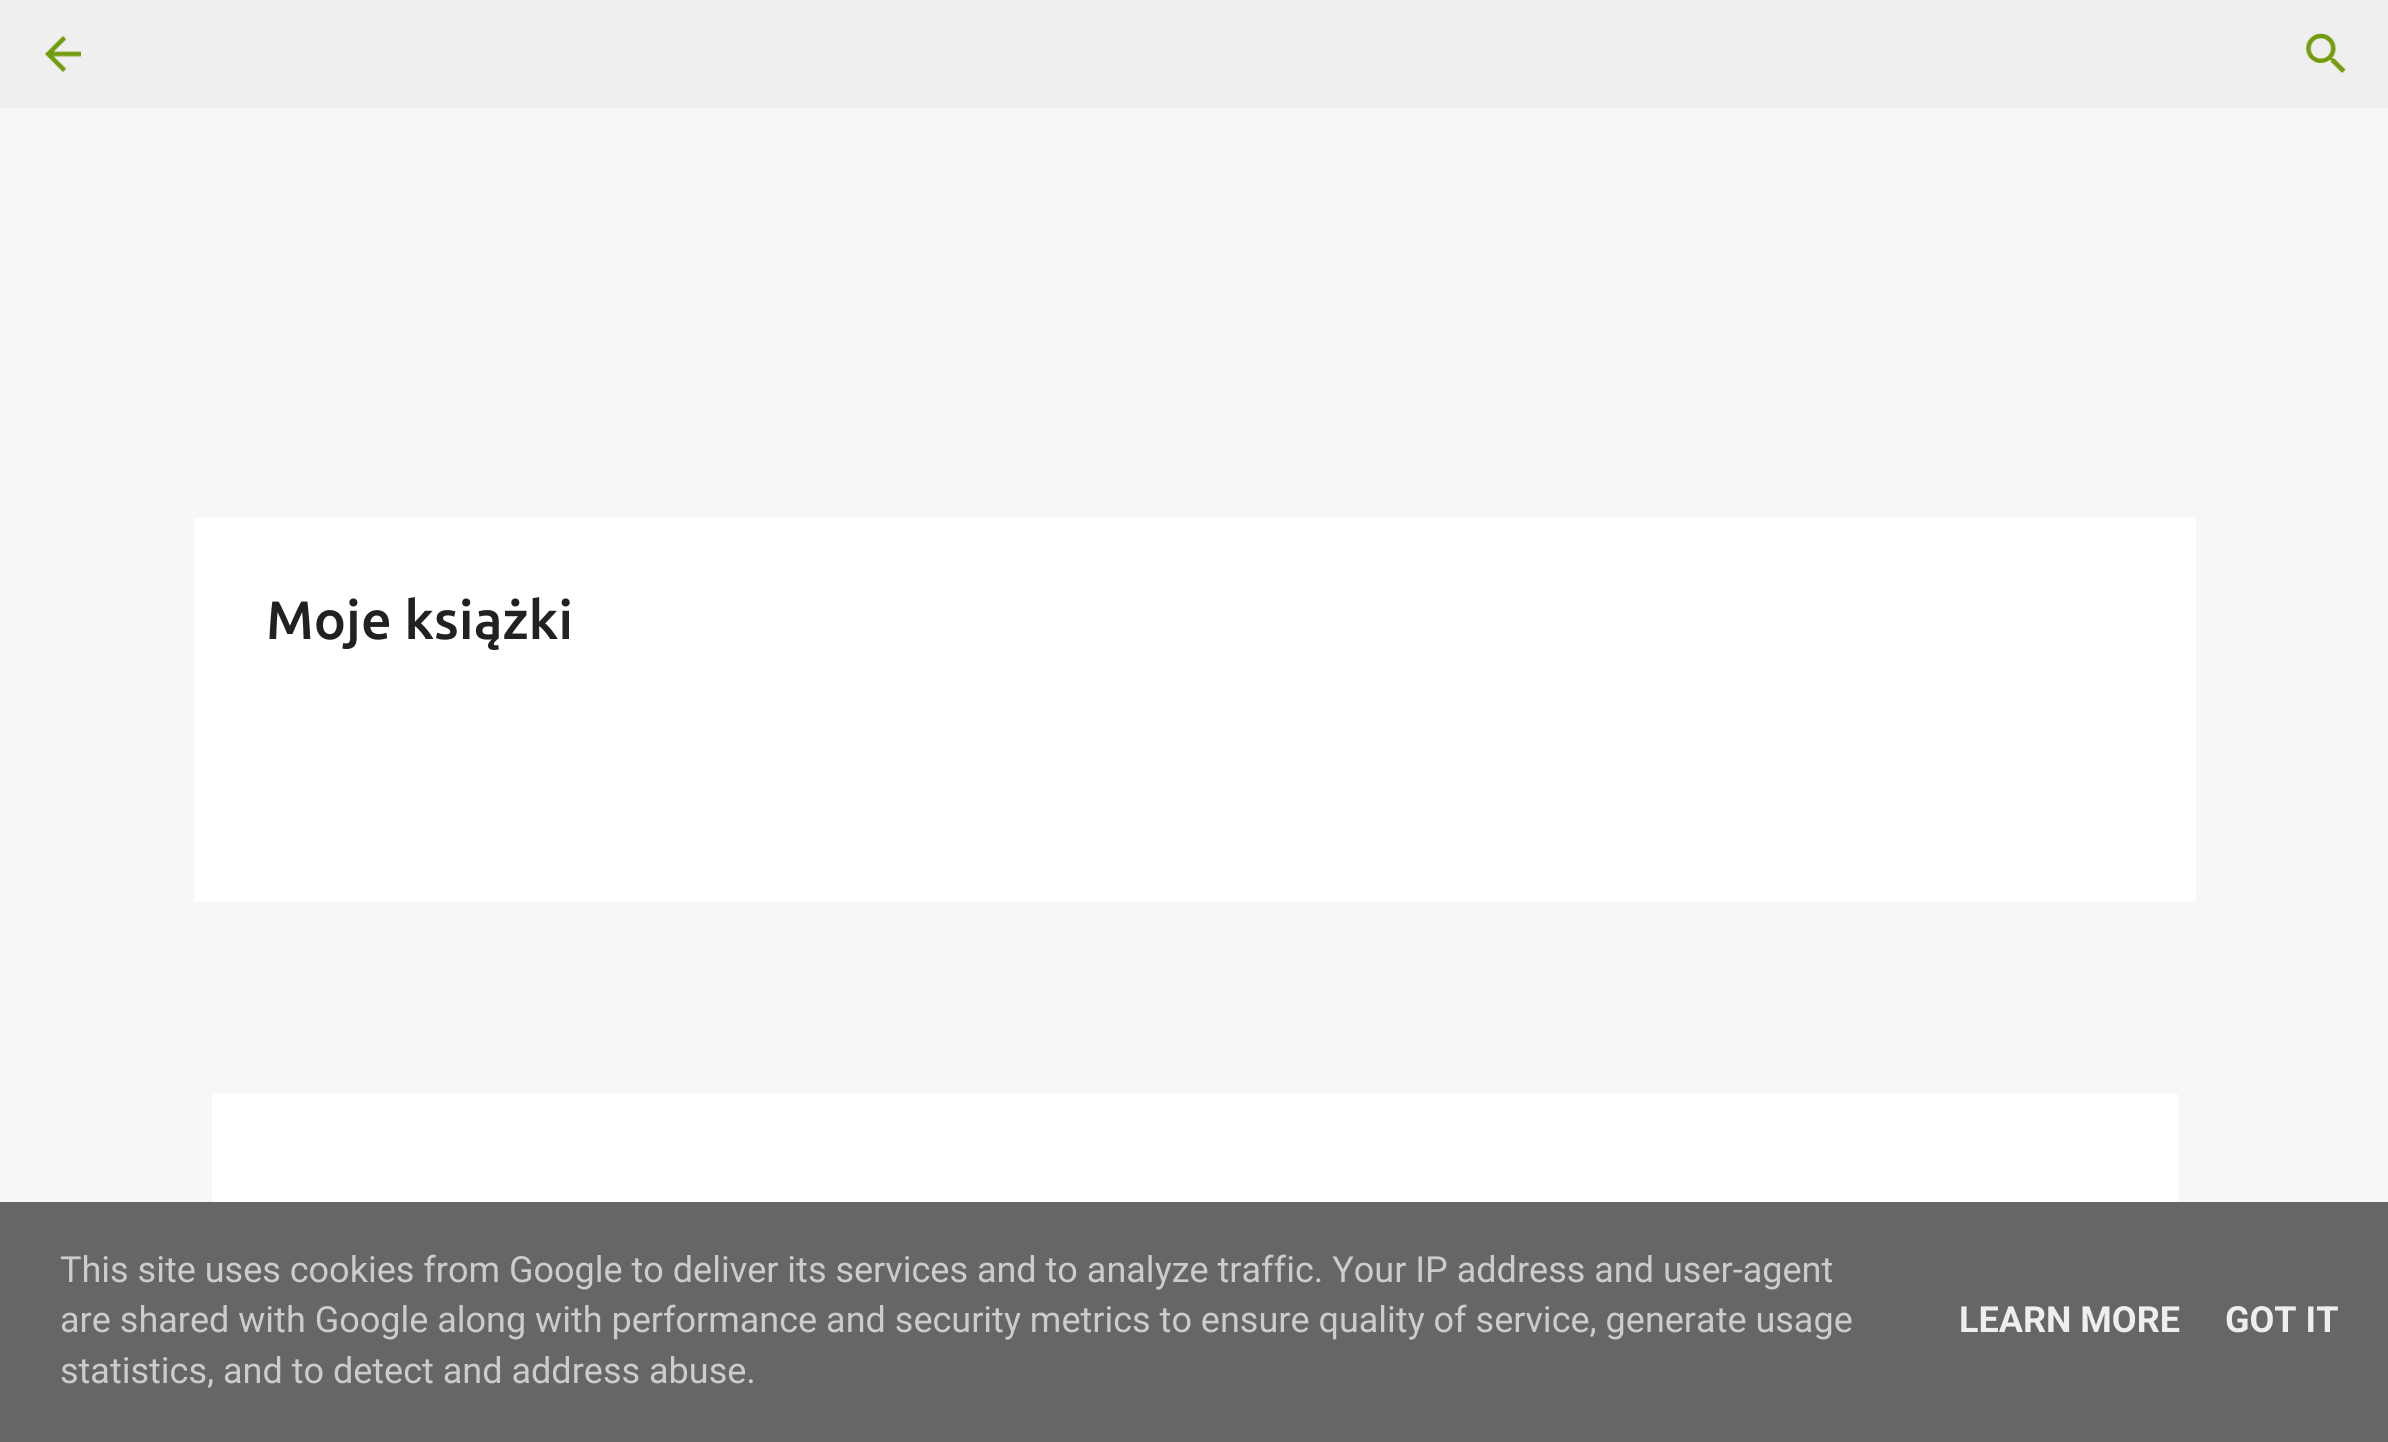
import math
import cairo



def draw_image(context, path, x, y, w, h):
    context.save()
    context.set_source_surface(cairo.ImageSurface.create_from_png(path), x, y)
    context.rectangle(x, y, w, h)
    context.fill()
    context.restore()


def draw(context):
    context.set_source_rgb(247 / 255, 247 / 255, 247 / 255)
    context.paint()
    context.set_source_rgb(239 / 255, 239 / 255, 239 / 255)
    context.rectangle(0, 0, 2388, 108)
    context.fill()
    draw_image(context, "images/1.png", 45, 35, 36, 38)
    draw_image(context, "images/2.png", 2305, 33, 41, 40)
    context.set_source_rgb(1, 1, 1)
    context.rectangle(194, 518, 2002, 384)
    context.fill()
    context.rectangle(212, 1094, 1966, 108)
    context.fill()
    context.set_source_rgb(102 / 255, 102 / 255, 102 / 255)
    context.rectangle(0, 1202, 2388, 240)
    context.fill()
    context.select_font_face("Ubuntu Medium")
    context.set_font_size(54)
    context.set_source_rgb(33 / 255, 33 / 255, 33 / 255)
    context.move_to(266, 639)
    context.show_text("Moje książki")
    context.select_font_face("Roboto")
    context.set_font_size(36)
    context.set_source_rgb(204 / 255, 204 / 255, 204 / 255)
    context.move_to(60, 1282)
    context.show_text("This site uses cookies from Google to deliver its services and to analyze traffic. Your IP address and user-agent")
    context.move_to(60, 1332)
    context.show_text("are shared with Google along with performance and security metrics to ensure quality of service, generate usage")
    context.move_to(60, 1383)
    context.show_text("statistics, and to detect and address abuse.")
    context.select_font_face("Roboto", cairo.FontSlant.NORMAL, cairo.FontWeight.BOLD)
    context.set_source_rgb(238 / 255, 238 / 255, 238 / 255)
    context.move_to(1959, 1332)
    context.show_text("LEARN MORE")
    context.move_to(2225, 1332)
    context.show_text("GOT IT")


surface = cairo.ImageSurface(cairo.Format.RGB24, 2388, 1442)
context = cairo.Context(surface)
options = cairo.FontOptions()
options.set_hint_metrics(cairo.HintMetrics.OFF)
options.set_hint_style(cairo.HintStyle.NONE)
context.set_font_options(options)
context.set_miter_limit(4)
draw(context)
surface.write_to_png("out.png")
